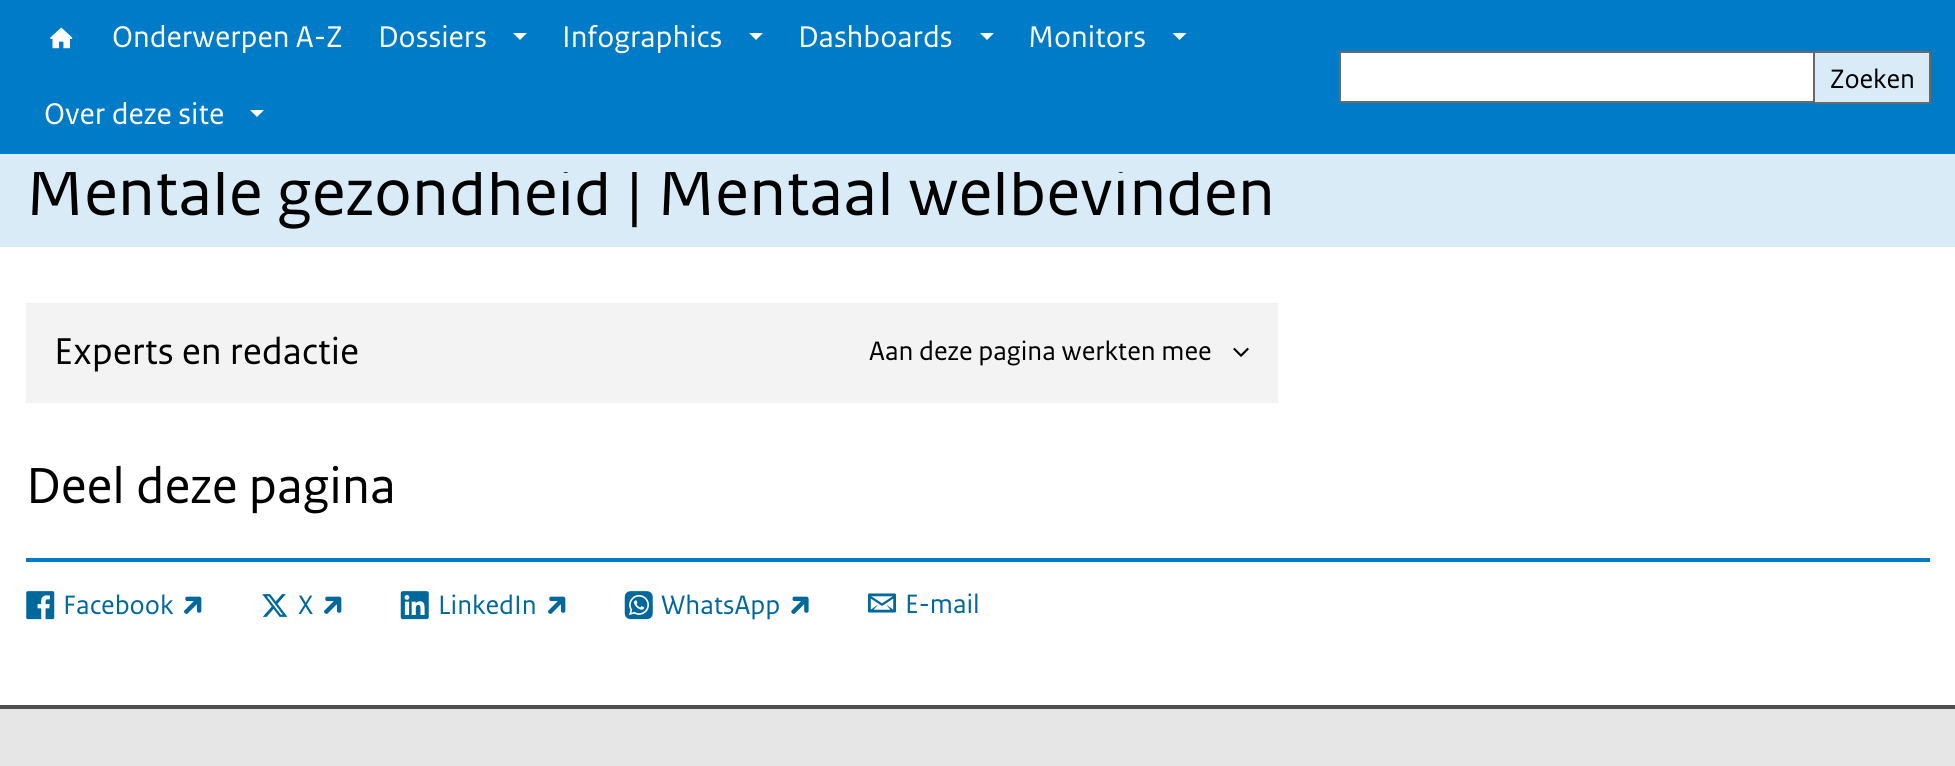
import math
import cairo



def draw_image(context, path, x, y, w, h):
    context.save()
    context.set_source_surface(cairo.ImageSurface.create_from_png(path), x, y)
    context.rectangle(x, y, w, h)
    context.fill()
    context.restore()


def draw(context):
    context.set_source_rgb(1, 1, 1)
    context.paint()
    context.set_source_rgb(0, 123 / 255, 199 / 255)
    context.rectangle(0, 0, 1955, 154)
    context.fill()
    draw_image(context, "images/1.png", 50, 27, 23, 22)
    context.set_source_rgb(1, 1, 1)
    context.new_path()
    context.move_to(513, 33)
    context.line_to(527, 33)
    context.line_to(520, 40)
    context.close_path()
    context.fill()
    context.new_path()
    context.move_to(749, 33)
    context.line_to(763, 33)
    context.line_to(756, 40)
    context.close_path()
    context.fill()
    context.new_path()
    context.move_to(980, 33)
    context.line_to(994, 33)
    context.line_to(987, 40)
    context.close_path()
    context.fill()
    context.new_path()
    context.move_to(1172.5, 33)
    context.line_to(1186.5, 33)
    context.line_to(1179.5, 40)
    context.close_path()
    context.fill()
    context.new_path()
    context.move_to(250, 110)
    context.line_to(264, 110)
    context.line_to(257, 117)
    context.close_path()
    context.fill()
    context.rectangle(1340, 52, 474, 50)
    context.fill_preserve()
    context.set_source_rgb(105 / 255, 105 / 255, 105 / 255)
    context.stroke()
    context.set_source_rgb(217 / 255, 235 / 255, 247 / 255)
    context.rectangle(1815, 53, 114, 49)
    context.fill()
    context.set_source_rgb(105 / 255, 105 / 255, 105 / 255)
    context.rectangle(1815, 51, 115, 2)
    context.fill()
    context.rectangle(1929, 51, 2, 52)
    context.fill()
    context.rectangle(1815, 102, 115, 2)
    context.fill()
    context.set_source_rgb(217 / 255, 235 / 255, 247 / 255)
    context.rectangle(0, 172, 1955, 75)
    context.fill()
    context.set_source_rgb(243 / 255, 243 / 255, 243 / 255)
    context.rectangle(26, 303, 1252, 100)
    context.fill()
    draw_image(context, "images/2.png", 1233, 347, 16, 10)
    context.set_source_rgb(0, 123 / 255, 199 / 255)
    context.rectangle(26, 558, 1904, 4)
    context.fill()
    draw_image(context, "images/3.png", 26, 591, 29, 29)
    draw_image(context, "images/4.png", 184, 596, 18, 18)
    draw_image(context, "images/5.png", 262, 594, 26, 23)
    draw_image(context, "images/4.png", 324, 596, 18, 18)
    draw_image(context, "images/6.png", 400, 591, 29, 29)
    draw_image(context, "images/4.png", 548, 596, 18, 18)
    draw_image(context, "images/7.png", 624, 591, 29, 29)
    draw_image(context, "images/8.png", 791, 596, 18, 18)
    draw_image(context, "images/9.png", 868, 593, 28, 20)
    context.set_source_rgb(230 / 255, 230 / 255, 230 / 255)
    context.rectangle(0, 709, 1955, 57)
    context.fill()
    context.set_source_rgb(78 / 255, 78 / 255, 78 / 255)
    context.rectangle(0, 705, 1955, 4)
    context.fill()
    context.select_font_face("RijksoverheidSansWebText")
    context.set_font_size(31.5)
    context.set_source_rgb(1, 1, 1)
    context.move_to(112, 47)
    context.show_text("Onderwerpen A-Z")
    context.move_to(378, 47)
    context.show_text("Dossiers")
    context.move_to(562, 47)
    context.show_text("Infographics")
    context.move_to(798, 47)
    context.show_text("Dashboards")
    context.move_to(1028, 47)
    context.show_text("Monitors")
    context.move_to(44, 124)
    context.show_text("Over deze site")
    context.set_font_size(28)
    context.set_source_rgb(0, 0, 0)
    context.move_to(1830, 88)
    context.show_text("Zoeken")
    context.set_font_size(70)
    context.move_to(26, 215)
    context.show_text("Mentale gezondheid | Mentaal welbevinden")
    context.set_source_rgb(217 / 255, 235 / 255, 247 / 255)
    context.rectangle(0, 154, 1955, 18)
    context.fill()
    context.set_font_size(39.25)
    context.set_source_rgb(0, 0, 0)
    context.move_to(54, 364)
    context.show_text("Experts en redactie")
    context.set_font_size(28)
    context.move_to(869, 360)
    context.show_text("Aan deze pagina werkten mee")
    context.set_font_size(53.25)
    context.move_to(26, 503)
    context.show_text("Deel deze pagina")
    context.set_font_size(28)
    context.set_source_rgb(1 / 255, 104 / 255, 155 / 255)
    context.move_to(63, 614)
    context.show_text("Facebook")
    context.move_to(298, 614)
    context.show_text("X")
    context.move_to(438, 614)
    context.show_text("LinkedIn")
    context.move_to(661, 614)
    context.show_text("WhatsApp")
    context.move_to(905, 613)
    context.show_text("E-mail")


surface = cairo.ImageSurface(cairo.Format.RGB24, 1955, 766)
context = cairo.Context(surface)
options = cairo.FontOptions()
options.set_hint_metrics(cairo.HintMetrics.OFF)
options.set_hint_style(cairo.HintStyle.NONE)
context.set_font_options(options)
context.set_miter_limit(4)
draw(context)
surface.write_to_png("out.png")
